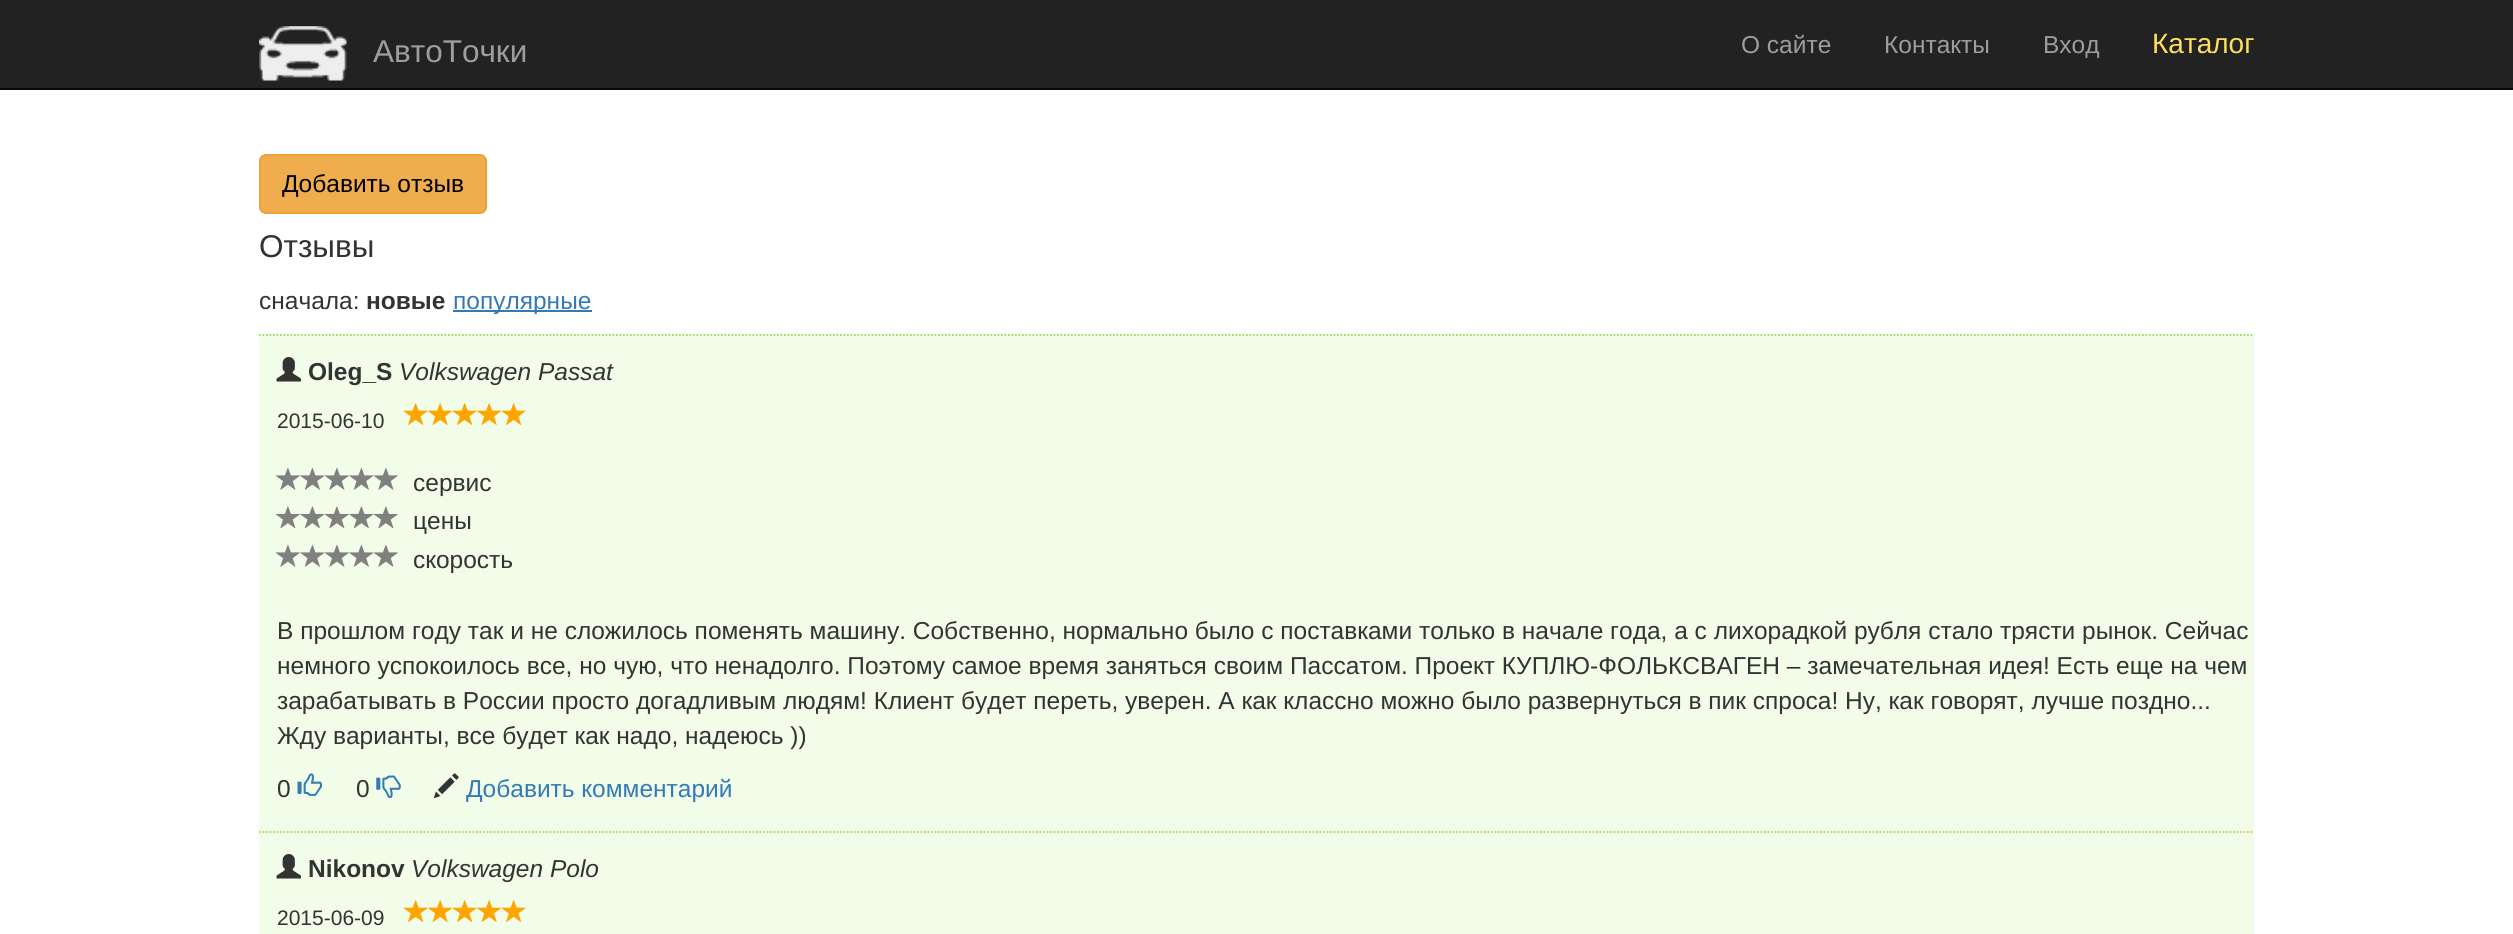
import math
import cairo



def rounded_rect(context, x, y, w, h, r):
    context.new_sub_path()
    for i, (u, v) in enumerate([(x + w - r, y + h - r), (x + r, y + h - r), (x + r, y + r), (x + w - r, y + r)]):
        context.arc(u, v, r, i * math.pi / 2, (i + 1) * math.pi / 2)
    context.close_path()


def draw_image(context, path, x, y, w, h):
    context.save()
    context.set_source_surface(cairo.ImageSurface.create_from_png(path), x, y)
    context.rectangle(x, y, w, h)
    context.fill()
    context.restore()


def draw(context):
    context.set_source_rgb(1, 1, 1)
    context.paint()
    context.set_source_rgb(34 / 255, 34 / 255, 34 / 255)
    context.rectangle(0, 0, 2513, 88)
    context.fill()
    context.set_source_rgb(8 / 255, 8 / 255, 8 / 255)
    context.rectangle(0, 88, 2513, 2)
    context.fill()
    draw_image(context, "images/1.png", 259, 26, 88, 55)
    context.set_source_rgb(240 / 255, 173 / 255, 78 / 255)
    rounded_rect(context, 260, 155, 226, 58, 6)
    context.fill_preserve()
    context.set_source_rgb(238 / 255, 162 / 255, 54 / 255)
    context.stroke()
    context.set_source_rgb(51 / 255, 122 / 255, 183 / 255)
    context.rectangle(453, 310, 139, 2)
    context.fill()
    context.set_source_rgb(241 / 255, 253 / 255, 232 / 255)
    context.rectangle(259, 334, 1995, 600)
    context.fill()
    context.new_path()
    context.move_to(259, 335)
    context.line_to(2254, 335)
    context.set_source_rgb(155 / 255, 218 / 255, 103 / 255)
    context.set_line_width(1.8)
    context.set_dash([1.75, 1.75])
    context.stroke()
    draw_image(context, "images/2.png", 276, 357, 25, 25)
    draw_image(context, "images/3.png", 403, 403, 123, 22)
    draw_image(context, "images/4.png", 275, 467, 123, 23)
    draw_image(context, "images/5.png", 275, 506, 123, 23)
    draw_image(context, "images/4.png", 275, 544, 123, 23)
    draw_image(context, "images/6.png", 297, 773, 25, 23)
    draw_image(context, "images/7.png", 376, 775, 25, 23)
    draw_image(context, "images/8.png", 433, 773, 26, 26)
    context.new_path()
    context.move_to(259, 832)
    context.line_to(2254, 832)
    context.stroke()
    draw_image(context, "images/2.png", 276, 854, 25, 25)
    draw_image(context, "images/3.png", 403, 900, 123, 22)
    context.select_font_face("Liberation Sans")
    context.set_font_size(31.5)
    context.set_source_rgb(157 / 255, 157 / 255, 157 / 255)
    context.move_to(373, 62)
    context.show_text("АвтоТочки")
    context.set_font_size(24.5)
    context.move_to(1741, 53)
    context.show_text("О сайте")
    context.move_to(1884, 53)
    context.show_text("Контакты")
    context.move_to(2043, 53)
    context.show_text("Вход")
    context.set_font_size(28)
    context.set_source_rgb(253 / 255, 224 / 255, 91 / 255)
    context.move_to(2152, 53)
    context.show_text("Каталог")
    context.set_font_size(24.5)
    context.set_source_rgb(0, 0, 0)
    context.move_to(282, 192)
    context.show_text("Добавить отзыв")
    context.set_font_size(31.5)
    context.set_source_rgb(51 / 255, 51 / 255, 51 / 255)
    context.move_to(259, 257)
    context.show_text("Отзывы")
    context.set_font_size(24.5)
    context.move_to(259, 309)
    context.show_text("сначала:")
    context.select_font_face("Liberation Sans", cairo.FontSlant.NORMAL, cairo.FontWeight.BOLD)
    context.move_to(366, 309)
    context.show_text("новые")
    context.select_font_face("Liberation Sans")
    context.set_source_rgb(51 / 255, 122 / 255, 183 / 255)
    context.move_to(453, 309)
    context.show_text("популярные")
    context.select_font_face("Liberation Sans", cairo.FontSlant.NORMAL, cairo.FontWeight.BOLD)
    context.set_source_rgb(51 / 255, 51 / 255, 51 / 255)
    context.move_to(308, 380)
    context.show_text("Oleg_S")
    context.select_font_face("Liberation Sans", cairo.FontSlant.ITALIC)
    context.move_to(399, 380)
    context.show_text("Volkswagen Passat")
    context.select_font_face("Liberation Sans")
    context.set_font_size(21)
    context.move_to(277, 428)
    context.show_text("2015-06-10")
    context.set_font_size(24.5)
    context.move_to(413, 491)
    context.show_text("сервис")
    context.move_to(413, 529)
    context.show_text("цены")
    context.move_to(413, 568)
    context.show_text("скорость")
    context.move_to(277, 639)
    context.show_text("В прошлом году так и не сложилось поменять машину. Собственно, нормально было с поставками только в начале года, а с лихорадкой рубля стало трясти рынок. Сейчас")
    context.move_to(277, 674)
    context.show_text("немного успокоилось все, но чую, что ненадолго. Поэтому самое время заняться своим Пассатом. Проект КУПЛЮ-ФОЛЬКСВАГЕН – замечательная идея! Есть еще на чем")
    context.move_to(277, 709)
    context.show_text("зарабатывать в России просто догадливым людям! Клиент будет переть, уверен. А как классно можно было развернуться в пик спроса! Ну, как говорят, лучше поздно...")
    context.move_to(277, 744)
    context.show_text("Жду варианты, все будет как надо, надеюсь ))")
    context.move_to(277, 797)
    context.show_text("0")
    context.move_to(356, 797)
    context.show_text("0")
    context.set_source_rgb(51 / 255, 122 / 255, 183 / 255)
    context.move_to(466, 797)
    context.show_text("Добавить комментарий")
    context.select_font_face("Liberation Sans", cairo.FontSlant.NORMAL, cairo.FontWeight.BOLD)
    context.set_source_rgb(51 / 255, 51 / 255, 51 / 255)
    context.move_to(308, 877)
    context.show_text("Nikonov")
    context.select_font_face("Liberation Sans", cairo.FontSlant.ITALIC)
    context.move_to(411, 877)
    context.show_text("Volkswagen Polo")
    context.select_font_face("Liberation Sans")
    context.set_font_size(21)
    context.move_to(277, 925)
    context.show_text("2015-06-09")


surface = cairo.ImageSurface(cairo.Format.RGB24, 2513, 934)
context = cairo.Context(surface)
options = cairo.FontOptions()
options.set_hint_metrics(cairo.HintMetrics.OFF)
options.set_hint_style(cairo.HintStyle.NONE)
context.set_font_options(options)
context.set_miter_limit(4)
draw(context)
surface.write_to_png("out.png")
